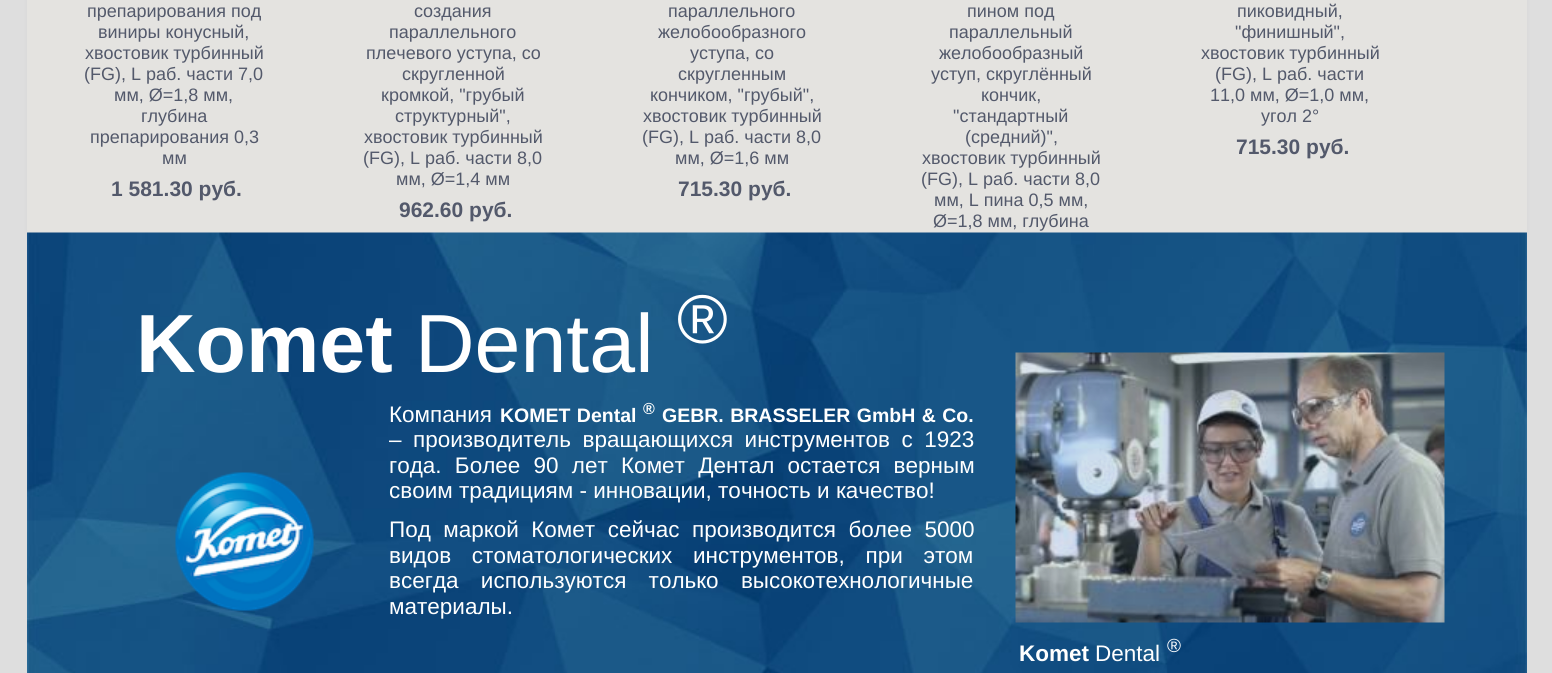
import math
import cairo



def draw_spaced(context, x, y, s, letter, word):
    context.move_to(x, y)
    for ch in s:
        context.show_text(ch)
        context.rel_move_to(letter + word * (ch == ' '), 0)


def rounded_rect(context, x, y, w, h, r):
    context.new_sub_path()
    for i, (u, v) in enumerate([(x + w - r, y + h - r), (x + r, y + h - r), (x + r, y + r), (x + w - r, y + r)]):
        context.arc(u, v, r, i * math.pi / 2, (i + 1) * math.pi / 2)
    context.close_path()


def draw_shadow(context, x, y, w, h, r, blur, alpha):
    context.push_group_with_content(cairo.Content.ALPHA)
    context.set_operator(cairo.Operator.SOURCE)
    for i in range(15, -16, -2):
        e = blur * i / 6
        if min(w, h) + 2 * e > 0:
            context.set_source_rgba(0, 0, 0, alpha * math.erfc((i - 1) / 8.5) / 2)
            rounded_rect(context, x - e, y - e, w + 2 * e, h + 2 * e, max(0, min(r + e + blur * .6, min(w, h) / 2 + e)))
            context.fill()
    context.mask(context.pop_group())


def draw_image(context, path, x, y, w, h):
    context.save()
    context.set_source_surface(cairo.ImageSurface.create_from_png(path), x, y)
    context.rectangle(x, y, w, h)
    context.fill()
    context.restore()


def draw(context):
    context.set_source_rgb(222 / 255, 222 / 255, 222 / 255)
    context.paint()
    context.set_source_rgb(50 / 255, 50 / 255, 50 / 255)
    draw_shadow(context, 36, -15, 1482, 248, 0, 5, 0.75)
    context.set_source_rgb(228 / 255, 227 / 255, 224 / 255)
    context.rectangle(27, 0, 1500, 233)
    context.fill()
    draw_image(context, "images/1.png", 27, 232, 1500, 441)
    draw_image(context, "images/2.png", 175, 472, 139, 139)
    draw_image(context, "images/3.png", 1015, 352, 430, 271)
    context.select_font_face("Liberation Sans")
    context.set_font_size(18)
    context.set_source_rgb(83 / 255, 89 / 255, 107 / 255)
    context.move_to(87, 17)
    context.show_text("препарирования под")
    context.move_to(98, 38)
    context.show_text("виниры конусный,")
    context.move_to(85, 59)
    context.show_text("хвостовик турбинный")
    context.move_to(84, 80)
    context.show_text("(FG), L раб. части 7,0")
    context.move_to(114, 101)
    context.show_text("мм, Ø=1,8 мм,")
    context.move_to(141, 122)
    context.show_text("глубина")
    context.move_to(90, 143)
    context.show_text("препарирования 0,3")
    context.move_to(162, 164)
    context.show_text("мм")
    context.select_font_face("Liberation Sans", cairo.FontSlant.NORMAL, cairo.FontWeight.BOLD)
    context.set_font_size(21)
    context.move_to(111, 196)
    context.show_text("1 581.30 руб.")
    context.select_font_face("Liberation Sans")
    context.set_font_size(18)
    context.move_to(414, 17)
    context.show_text("создания")
    context.move_to(389, 38)
    context.show_text("параллельного")
    context.move_to(366, 59)
    context.show_text("плечевого уступа, со")
    context.move_to(402, 80)
    context.show_text("скругленной")
    context.move_to(381, 101)
    context.show_text("кромкой, \"грубый")
    context.move_to(395, 122)
    context.show_text("структурный\",")
    context.move_to(364, 143)
    context.show_text("хвостовик турбинный")
    context.move_to(363, 164)
    context.show_text("(FG), L раб. части 8,0")
    context.move_to(396, 185)
    context.show_text("мм, Ø=1,4 мм")
    context.select_font_face("Liberation Sans", cairo.FontSlant.NORMAL, cairo.FontWeight.BOLD)
    context.set_font_size(21)
    context.move_to(399, 217)
    context.show_text("962.60 руб.")
    context.select_font_face("Liberation Sans")
    context.set_font_size(18)
    context.move_to(668, 17)
    context.show_text("параллельного")
    context.move_to(658, 38)
    context.show_text("желобообразного")
    context.move_to(690, 59)
    context.show_text("уступа, со")
    context.move_to(678, 80)
    context.show_text("скругленным")
    context.move_to(650, 101)
    context.show_text("кончиком, \"грубый\",")
    context.move_to(643, 122)
    context.show_text("хвостовик турбинный")
    context.move_to(642, 143)
    context.show_text("(FG), L раб. части 8,0")
    context.move_to(675, 164)
    context.show_text("мм, Ø=1,6 мм")
    context.select_font_face("Liberation Sans", cairo.FontSlant.NORMAL, cairo.FontWeight.BOLD)
    context.set_font_size(21)
    context.move_to(678, 196)
    context.show_text("715.30 руб.")
    context.select_font_face("Liberation Sans")
    context.set_font_size(18)
    context.move_to(967, 17)
    context.show_text("пином под")
    context.move_to(949, 38)
    context.show_text("параллельный")
    context.move_to(939, 59)
    context.show_text("желобообразный")
    context.move_to(931, 80)
    context.show_text("уступ, скруглённый")
    context.move_to(981, 101)
    context.show_text("кончик,")
    context.move_to(953, 122)
    context.show_text("\"стандартный")
    context.move_to(965, 143)
    context.show_text("(средний)\",")
    context.move_to(922, 164)
    context.show_text("хвостовик турбинный")
    context.move_to(921, 185)
    context.show_text("(FG), L раб. части 8,0")
    context.move_to(934, 206)
    context.show_text("мм, L пина 0,5 мм,")
    context.move_to(933, 227)
    context.show_text("Ø=1,8 мм, глубина")
    context.move_to(1237, 17)
    context.show_text("пиковидный,")
    context.move_to(1235, 38)
    context.show_text("\"финишный\",")
    context.move_to(1201, 59)
    context.show_text("хвостовик турбинный")
    context.move_to(1215, 80)
    context.show_text("(FG), L раб. части")
    context.move_to(1210, 101)
    context.show_text("11,0 мм, Ø=1,0 мм,")
    context.move_to(1261, 122)
    context.show_text("угол 2°")
    context.select_font_face("Liberation Sans", cairo.FontSlant.NORMAL, cairo.FontWeight.BOLD)
    context.set_font_size(21)
    context.move_to(1236, 154)
    context.show_text("715.30 руб.")
    context.set_font_size(82.5)
    context.set_source_rgb(1, 1, 1)
    context.move_to(136, 372)
    context.show_text("Komet")
    context.select_font_face("Liberation Sans")
    context.move_to(415, 372)
    context.show_text("Dental")
    context.set_font_size(69)
    context.move_to(677, 343)
    context.show_text("®")
    context.set_font_size(22.5)
    context.move_to(389, 422)
    context.show_text("Компания")
    context.select_font_face("Liberation Sans", cairo.FontSlant.NORMAL, cairo.FontWeight.BOLD)
    context.set_font_size(19.5)
    draw_spaced(context, 500, 422, "KOMET Dental", 0, 1)
    context.set_font_size(16)
    context.move_to(643, 414)
    context.show_text("®")
    context.set_font_size(19.5)
    draw_spaced(context, 662, 422, "GEBR. BRASSELER GmbH & Co.", 0, 1)
    context.select_font_face("Liberation Sans")
    context.set_font_size(22.5)
    draw_spaced(context, 389, 447, "– производитель вращающихся инструментов с 1923", 0, 5.25)
    draw_spaced(context, 389, 473, "года. Более 90 лет Комет Дентал остается верным", 0, 7)
    context.move_to(389, 498)
    context.show_text("своим традициям - инновации, точность и качество!")
    draw_spaced(context, 389, 537, "Под маркой Комет сейчас производится более 5000", 0, 6.25)
    draw_spaced(context, 389, 563, "видов стоматологических инструментов, при этом", 0, 14.5)
    draw_spaced(context, 389, 588, "всегда используются только высокотехнологичные", 0, 16)
    context.move_to(389, 614)
    context.show_text("материалы.")
    context.select_font_face("Liberation Sans", cairo.FontSlant.NORMAL, cairo.FontWeight.BOLD)
    context.move_to(1019, 661)
    context.show_text("Komet")
    context.select_font_face("Liberation Sans")
    context.move_to(1095, 661)
    context.show_text("Dental")
    context.set_font_size(19)
    context.move_to(1167, 652)
    context.show_text("®")


surface = cairo.ImageSurface(cairo.Format.RGB24, 1552, 673)
context = cairo.Context(surface)
options = cairo.FontOptions()
options.set_hint_metrics(cairo.HintMetrics.OFF)
options.set_hint_style(cairo.HintStyle.NONE)
context.set_font_options(options)
context.set_miter_limit(4)
draw(context)
surface.write_to_png("out.png")
